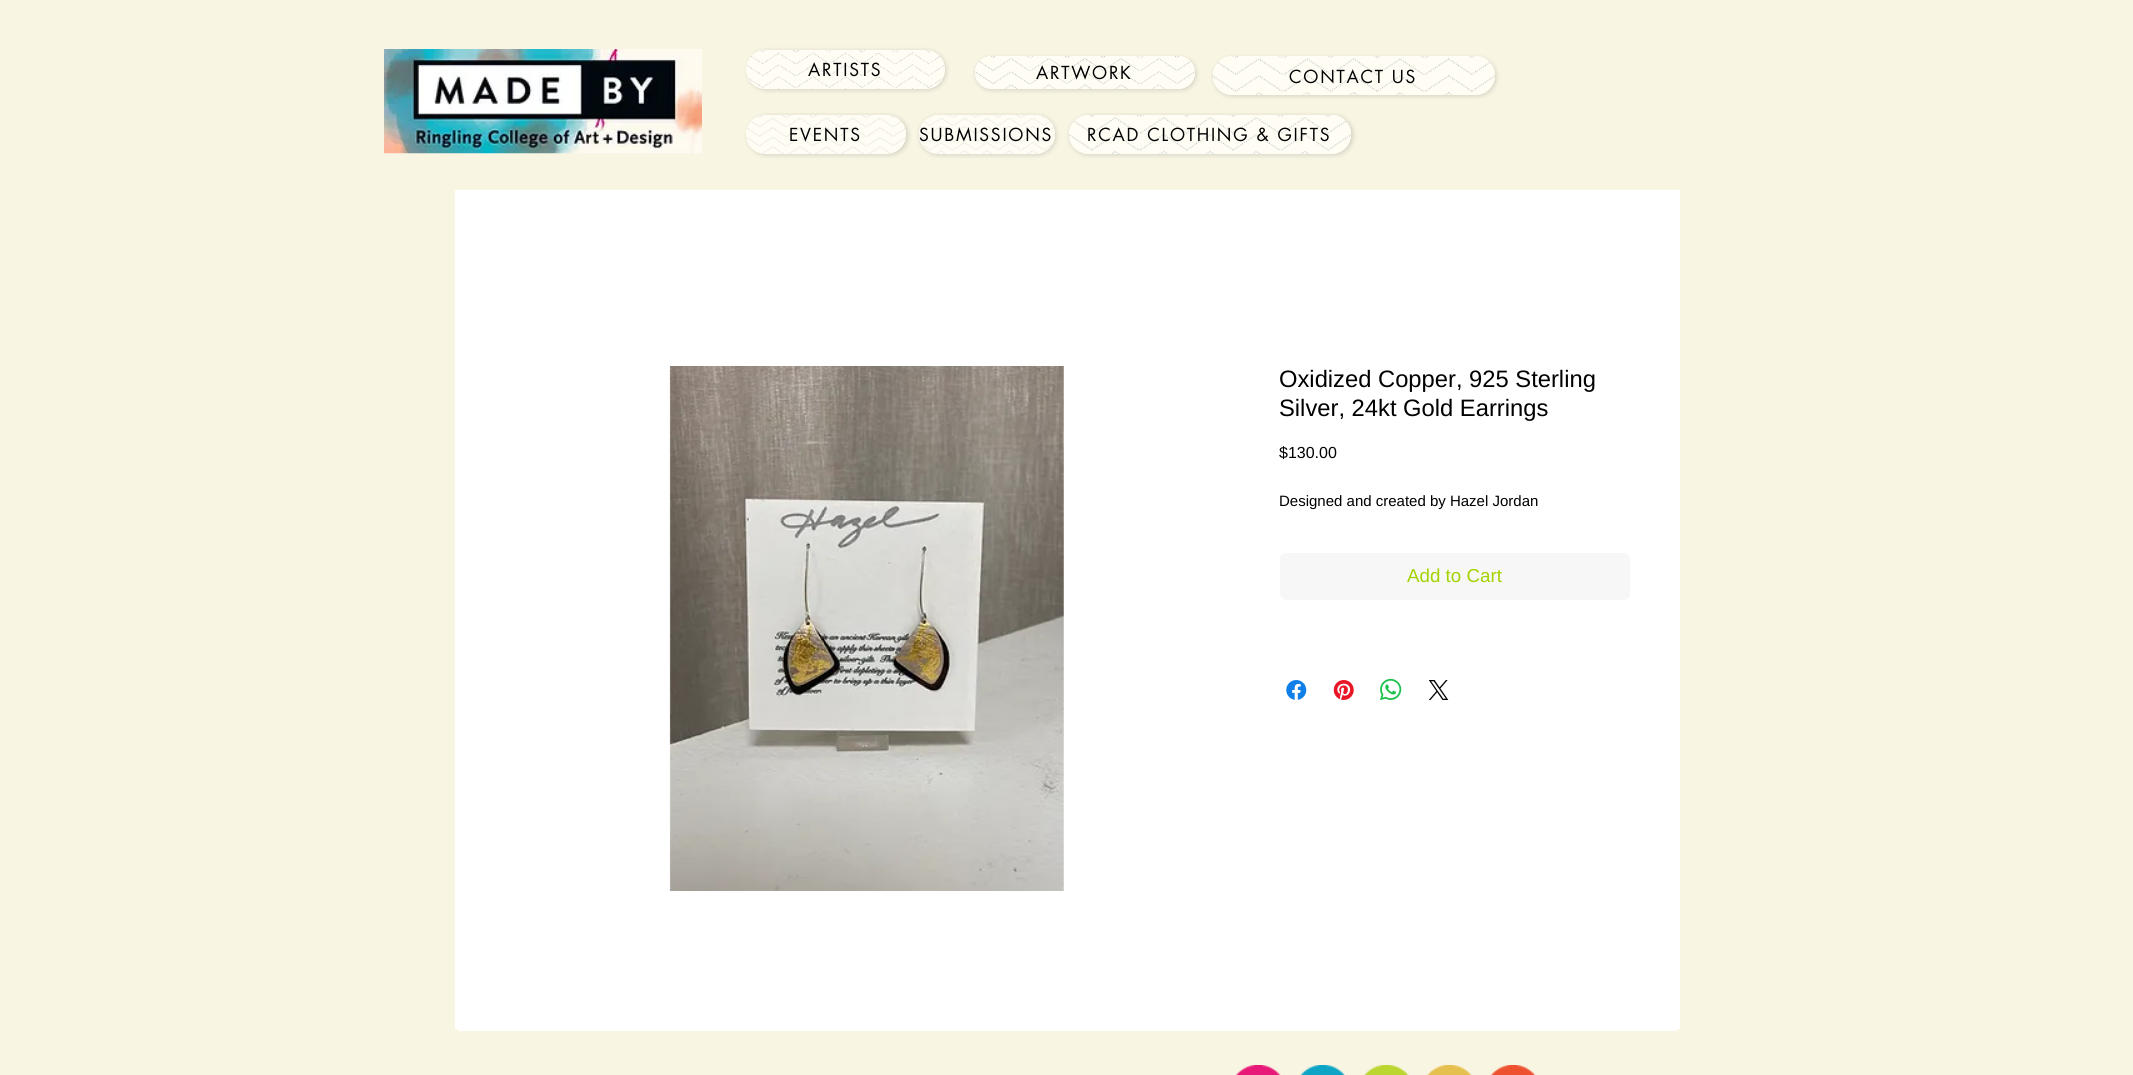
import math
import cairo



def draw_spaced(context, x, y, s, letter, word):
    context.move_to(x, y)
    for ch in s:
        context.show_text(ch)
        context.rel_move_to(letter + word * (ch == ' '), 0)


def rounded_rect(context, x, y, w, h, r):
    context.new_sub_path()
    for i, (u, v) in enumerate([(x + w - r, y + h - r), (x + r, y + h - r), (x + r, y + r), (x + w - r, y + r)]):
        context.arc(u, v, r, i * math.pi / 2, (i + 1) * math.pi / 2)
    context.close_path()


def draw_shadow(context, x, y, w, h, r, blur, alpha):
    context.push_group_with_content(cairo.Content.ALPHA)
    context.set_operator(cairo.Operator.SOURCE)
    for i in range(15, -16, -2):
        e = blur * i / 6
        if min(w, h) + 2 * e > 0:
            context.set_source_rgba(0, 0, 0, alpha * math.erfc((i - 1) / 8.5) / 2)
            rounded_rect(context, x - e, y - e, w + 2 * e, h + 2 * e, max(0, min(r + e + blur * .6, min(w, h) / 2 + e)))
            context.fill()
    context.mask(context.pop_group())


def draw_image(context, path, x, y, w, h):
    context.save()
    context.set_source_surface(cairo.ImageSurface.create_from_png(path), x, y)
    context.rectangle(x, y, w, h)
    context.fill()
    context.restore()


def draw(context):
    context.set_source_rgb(249 / 255, 245 / 255, 227 / 255)
    context.paint()
    draw_image(context, "images/1.png", 384, 49, 318, 105)
    context.set_source_rgb(0, 0, 0)
    draw_shadow(context, 748, 51, 198, 39, 19.5, 2.5, 0.15)
    context.set_source_rgb(1, 253 / 255, 244 / 255)
    rounded_rect(context, 746, 50, 199, 39, 19.5)
    context.fill()
    draw_image(context, "images/2.png", 747, 50, 197, 39)
    context.set_source_rgb(0, 0, 0)
    draw_shadow(context, 976, 58, 220, 32, 16, 2.5, 0.15)
    context.set_source_rgb(1, 253 / 255, 244 / 255)
    rounded_rect(context, 975, 56, 220, 33, 16.5)
    context.fill()
    draw_image(context, "images/3.png", 975, 56, 220, 33)
    context.set_source_rgb(0, 0, 0)
    draw_shadow(context, 1214, 58, 282, 38, 19, 2.5, 0.15)
    context.set_source_rgb(1, 253 / 255, 244 / 255)
    rounded_rect(context, 1213, 56, 282, 39, 19.5)
    context.fill()
    draw_image(context, "images/4.png", 1212, 56, 283, 39)
    context.set_source_rgb(0, 0, 0)
    draw_shadow(context, 748, 116, 160, 39, 19.5, 2.5, 0.15)
    context.set_source_rgb(1, 253 / 255, 244 / 255)
    rounded_rect(context, 746, 115, 160, 39, 19.5)
    context.fill()
    draw_image(context, "images/5.png", 746, 115, 160, 39)
    context.set_source_rgb(0, 0, 0)
    draw_shadow(context, 920, 116, 136, 39, 19.5, 2.5, 0.15)
    context.set_source_rgb(1, 253 / 255, 244 / 255)
    rounded_rect(context, 919, 115, 136, 39, 19.5)
    context.fill()
    draw_image(context, "images/6.png", 919, 115, 136, 39)
    context.set_source_rgb(0, 0, 0)
    draw_shadow(context, 1070, 116, 283, 39, 19.5, 2.5, 0.15)
    context.set_source_rgb(1, 253 / 255, 244 / 255)
    rounded_rect(context, 1069, 115, 282, 39, 19.5)
    context.fill()
    draw_image(context, "images/7.png", 1068, 115, 283, 39)
    context.set_source_rgb(1, 1, 1)
    rounded_rect(context, 455, 190, 1225, 841, 6)
    context.fill()
    context.rectangle(455, 190, 1225, 839)
    context.fill()
    draw_image(context, "images/8.png", 669, 366, 395, 525)
    context.set_source_rgb(247 / 255, 247 / 255, 247 / 255)
    rounded_rect(context, 1280, 553, 350, 47, 6)
    context.fill()
    draw_image(context, "images/9.png", 1286, 680, 21, 20)
    draw_image(context, "images/10.png", 1333, 680, 21, 20)
    draw_image(context, "images/11.png", 1380, 678, 22, 23)
    draw_image(context, "images/12.png", 1428, 680, 21, 20)
    draw_image(context, "images/13.png", 1236, 1065, 45, 10)
    draw_image(context, "images/14.png", 1300, 1065, 45, 10)
    draw_image(context, "images/15.png", 1364, 1065, 45, 10)
    draw_image(context, "images/16.png", 1427, 1065, 45, 10)
    draw_image(context, "images/17.png", 1491, 1065, 45, 10)
    context.select_font_face("futura")
    context.set_font_size(17.5)
    context.set_source_rgb(0, 0, 0)
    draw_spaced(context, 808, 76, "ARTISTS", 1.75, 0)
    draw_spaced(context, 1036, 79, "ARTWORK", 1.75, 0)
    draw_spaced(context, 1289, 83, "CONTACT US", 1.75, 0)
    draw_spaced(context, 789, 141, "EVENTS", 1.75, 0)
    draw_spaced(context, 919, 141, "SUBMISSIONS", 1.75, 0)
    draw_spaced(context, 1087, 141, "RCAD CLOTHING & GIFTS", 1.75, 0)
    context.select_font_face("Liberation Sans")
    context.set_font_size(23.75)
    context.move_to(1279, 387)
    context.show_text("Oxidized Copper, 925 Sterling")
    context.move_to(1279, 416)
    context.show_text("Silver, 24kt Gold Earrings")
    context.set_font_size(16)
    context.move_to(1279, 458)
    context.show_text("$130.00")
    context.set_font_size(15)
    context.move_to(1279, 506)
    context.show_text("Designed and created by Hazel Jordan")
    context.set_font_size(18.75)
    context.set_source_rgb(162 / 255, 211 / 255, 0)
    context.move_to(1407, 582)
    context.show_text("Add to Cart")


surface = cairo.ImageSurface(cairo.Format.RGB24, 2133, 1075)
context = cairo.Context(surface)
options = cairo.FontOptions()
options.set_hint_metrics(cairo.HintMetrics.OFF)
options.set_hint_style(cairo.HintStyle.NONE)
context.set_font_options(options)
context.set_miter_limit(4)
draw(context)
surface.write_to_png("out.png")
